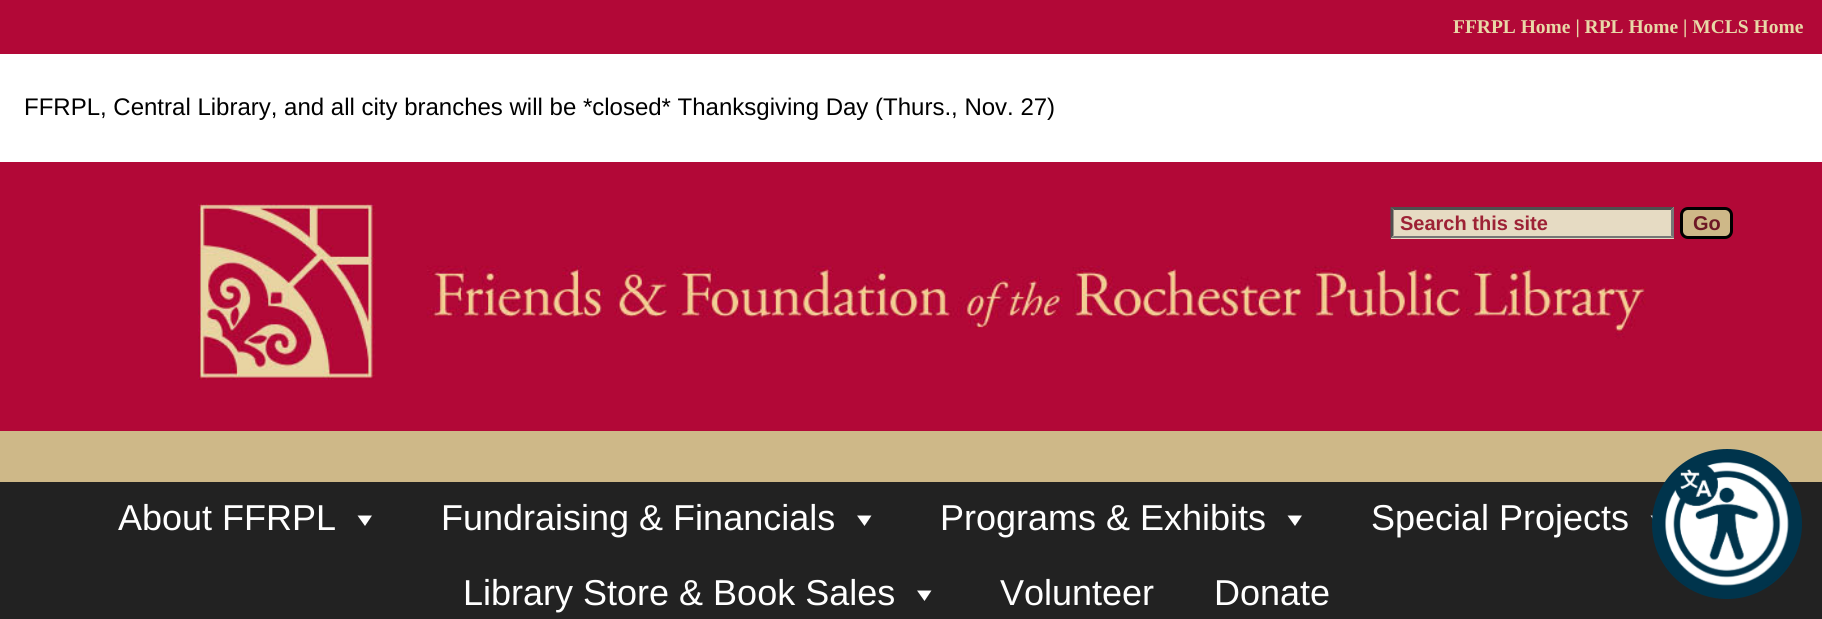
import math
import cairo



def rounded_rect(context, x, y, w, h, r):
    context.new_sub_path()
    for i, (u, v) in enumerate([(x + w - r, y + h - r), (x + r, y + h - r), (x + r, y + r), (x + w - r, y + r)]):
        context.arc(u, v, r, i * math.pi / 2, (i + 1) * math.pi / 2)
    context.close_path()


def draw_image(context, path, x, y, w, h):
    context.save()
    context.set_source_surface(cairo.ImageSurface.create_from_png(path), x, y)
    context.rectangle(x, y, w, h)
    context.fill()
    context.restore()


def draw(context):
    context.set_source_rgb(1, 1, 1)
    context.paint()
    context.set_source_rgb(178 / 255, 8 / 255, 55 / 255)
    context.rectangle(0, 0, 1822, 54)
    context.fill()
    context.rectangle(0, 162, 1822, 269)
    context.fill()
    draw_image(context, "images/1.png", 198, 203, 1448, 177)
    context.set_source_rgb(230 / 255, 219 / 255, 195 / 255)
    context.rectangle(1391, 207, 283, 32)
    context.fill()
    context.set_source_rgb(79 / 255, 79 / 255, 79 / 255)
    context.new_path()
    context.move_to(1390, 207)
    context.line_to(1674, 207)
    context.line_to(1671, 210)
    context.line_to(1394, 210)
    context.close_path()
    context.fill()
    context.set_source_rgb(118 / 255, 118 / 255, 118 / 255)
    context.new_path()
    context.move_to(1674, 207)
    context.line_to(1674, 238.5)
    context.line_to(1671, 235.5)
    context.line_to(1671, 210)
    context.close_path()
    context.fill()
    context.new_path()
    context.move_to(1674, 238)
    context.line_to(1390, 238)
    context.line_to(1394, 236)
    context.line_to(1671, 236)
    context.close_path()
    context.fill()
    context.set_source_rgb(79 / 255, 79 / 255, 79 / 255)
    context.new_path()
    context.move_to(1390.5, 238.5)
    context.line_to(1390.5, 207)
    context.line_to(1393.5, 210)
    context.line_to(1393.5, 235.5)
    context.close_path()
    context.fill()
    context.set_source_rgb(206 / 255, 184 / 255, 136 / 255)
    rounded_rect(context, 1681.5, 208.5, 50, 29, 6.5)
    context.fill_preserve()
    context.set_source_rgb(0, 0, 0)
    context.set_line_width(3)
    context.stroke()
    context.set_source_rgb(206 / 255, 184 / 255, 136 / 255)
    context.rectangle(0, 431, 1822, 51)
    context.fill()
    context.set_source_rgb(34 / 255, 34 / 255, 34 / 255)
    context.rectangle(0, 482, 1822, 137)
    context.fill()
    context.set_source_rgb(1, 1, 1)
    context.new_path()
    context.move_to(372, 515.5)
    context.line_to(365, 526)
    context.line_to(357.5, 515.5)
    context.close_path()
    context.fill()
    context.new_path()
    context.move_to(871.5, 515.5)
    context.line_to(864.5, 526)
    context.line_to(857, 515.5)
    context.close_path()
    context.fill()
    context.new_path()
    context.move_to(1302, 515.5)
    context.line_to(1295, 526)
    context.line_to(1287.5, 515.5)
    context.close_path()
    context.fill()
    context.new_path()
    context.move_to(1665, 515.5)
    context.line_to(1658, 526)
    context.line_to(1650.5, 515.5)
    context.close_path()
    context.fill()
    context.new_path()
    context.move_to(931.5, 590.5)
    context.line_to(924.5, 601)
    context.line_to(917, 590.5)
    context.close_path()
    context.fill()
    context.set_source_rgb(0, 52 / 255, 76 / 255)
    context.arc(1727, 524, 75, 0, 2 * math.pi)
    context.fill()
    draw_image(context, "images/2.png", 1665, 462, 124, 124)
    context.select_font_face("Liberation Serif", cairo.FontSlant.NORMAL, cairo.FontWeight.BOLD)
    context.set_font_size(19.5)
    context.set_source_rgb(232 / 255, 216 / 255, 167 / 255)
    context.move_to(1453, 33)
    context.show_text("FFRPL Home | RPL Home | MCLS Home")
    context.select_font_face("Liberation Sans")
    context.set_font_size(24)
    context.set_source_rgb(0, 0, 0)
    context.move_to(24, 115)
    context.show_text("FFRPL, Central Library, and all city branches will be *closed* Thanksgiving Day (Thurs., Nov. 27)")
    context.select_font_face("Liberation Sans", cairo.FontSlant.NORMAL, cairo.FontWeight.BOLD)
    context.set_font_size(20)
    context.set_source_rgb(157 / 255, 34 / 255, 53 / 255)
    context.move_to(1400, 230)
    context.show_text("Search this site")
    context.set_source_rgb(109 / 255, 23 / 255, 37 / 255)
    context.move_to(1693, 230)
    context.show_text("Go")
    context.select_font_face("Liberation Sans")
    context.set_font_size(36)
    context.set_source_rgb(1, 1, 1)
    context.move_to(118, 530)
    context.show_text("About FFRPL")
    context.move_to(441, 530)
    context.show_text("Fundraising & Financials")
    context.move_to(940, 530)
    context.show_text("Programs & Exhibits")
    context.move_to(1371, 530)
    context.show_text("Special Projects")
    context.move_to(463, 605)
    context.show_text("Library Store & Book Sales")
    context.move_to(1000, 605)
    context.show_text("Volunteer")
    context.move_to(1214, 605)
    context.show_text("Donate")


surface = cairo.ImageSurface(cairo.Format.RGB24, 1822, 619)
context = cairo.Context(surface)
options = cairo.FontOptions()
options.set_hint_metrics(cairo.HintMetrics.OFF)
options.set_hint_style(cairo.HintStyle.NONE)
context.set_font_options(options)
context.set_miter_limit(4)
draw(context)
surface.write_to_png("out.png")
